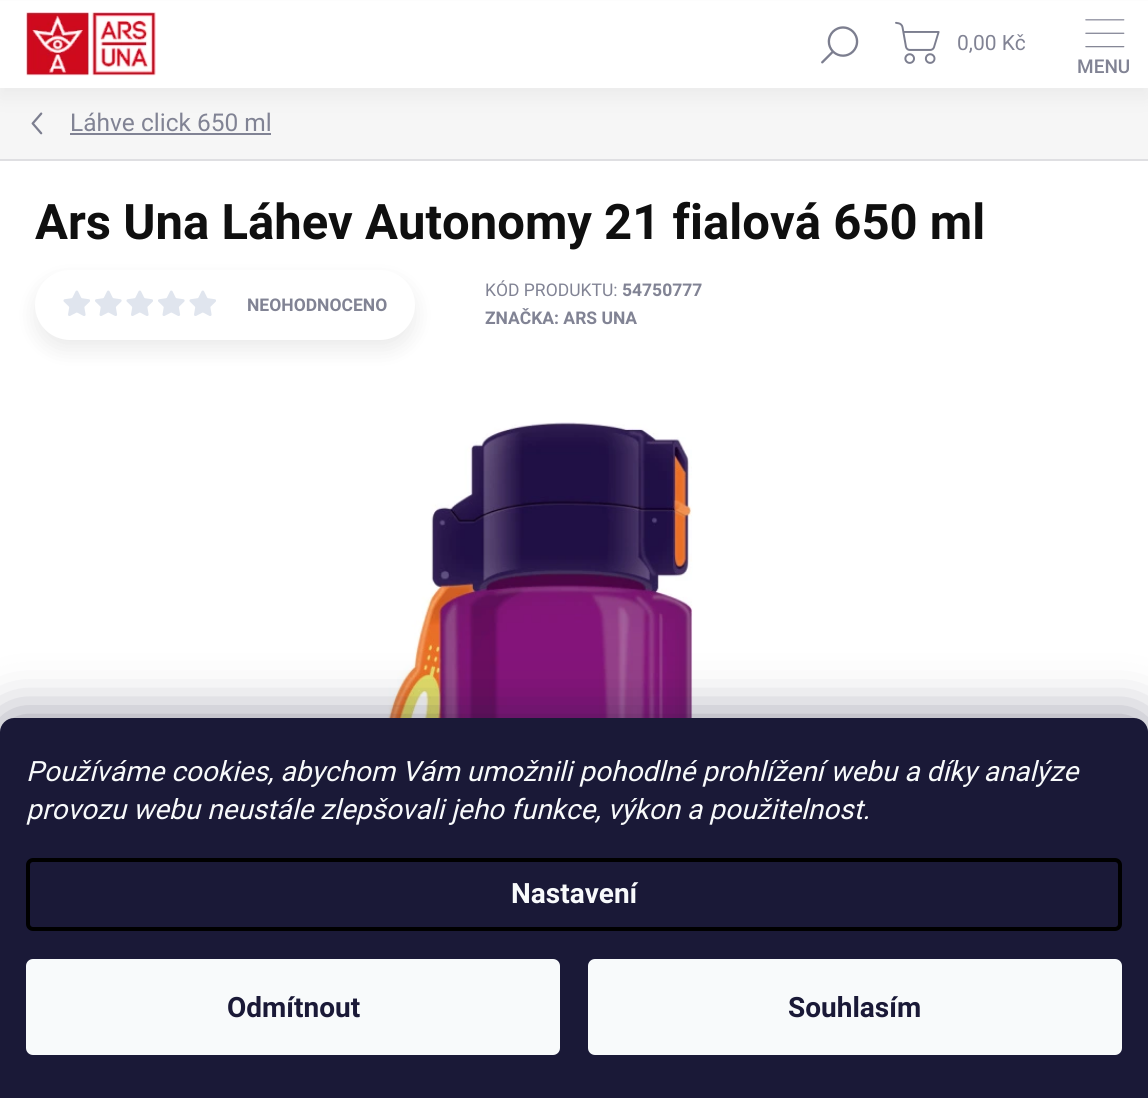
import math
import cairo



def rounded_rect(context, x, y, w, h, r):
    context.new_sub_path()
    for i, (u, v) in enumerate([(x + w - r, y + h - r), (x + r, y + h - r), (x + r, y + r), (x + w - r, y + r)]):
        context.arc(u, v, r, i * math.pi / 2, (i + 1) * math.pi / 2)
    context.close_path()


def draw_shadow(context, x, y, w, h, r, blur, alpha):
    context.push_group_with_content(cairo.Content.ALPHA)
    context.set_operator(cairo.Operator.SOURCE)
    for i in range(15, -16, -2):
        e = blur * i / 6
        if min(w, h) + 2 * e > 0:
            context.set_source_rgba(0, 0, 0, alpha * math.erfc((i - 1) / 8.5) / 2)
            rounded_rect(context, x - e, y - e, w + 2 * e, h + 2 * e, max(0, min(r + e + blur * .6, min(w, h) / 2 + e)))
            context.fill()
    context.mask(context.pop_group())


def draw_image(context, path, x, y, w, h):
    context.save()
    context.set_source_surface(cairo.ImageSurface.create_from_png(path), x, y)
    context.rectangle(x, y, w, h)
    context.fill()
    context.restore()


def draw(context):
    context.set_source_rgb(1, 1, 1)
    context.paint()
    context.set_source_rgb(246 / 255, 246 / 255, 246 / 255)
    context.rectangle(0, 88, 1148, 71)
    context.fill()
    draw_image(context, "images/5.png", 31, 112, 12, 23)
    context.set_source_rgb(125 / 255, 125 / 255, 125 / 255)
    draw_shadow(context, 0, 9, 1148, 87, 0, 9, 0.1)
    context.set_source_rgb(1, 1, 1)
    context.rectangle(0, 1, 1148, 87)
    context.fill()
    draw_image(context, "images/1.png", 26, 12, 130, 64)
    draw_image(context, "images/2.png", 821, 26, 38, 38)
    draw_image(context, "images/3.png", 895, 21, 45, 43)
    draw_image(context, "images/4.png", 1085, 19, 40, 29)
    context.set_source_rgb(223 / 255, 223 / 255, 226 / 255)
    context.rectangle(0, 159, 1148, 2)
    context.fill()
    context.set_source_rgb(129 / 255, 131 / 255, 148 / 255)
    context.rectangle(70, 133, 201, 2)
    context.fill()
    context.set_source_rgb(0, 0, 0)
    draw_shadow(context, 35, 280, 380, 70, 35, 10.5, 0.08)
    context.set_source_rgb(1, 1, 1)
    rounded_rect(context, 36, 271, 378, 68, 34)
    context.fill_preserve()
    context.stroke()
    draw_image(context, "images/6.png", 63, 290, 27, 26)
    draw_image(context, "images/7.png", 95, 290, 27, 26)
    draw_image(context, "images/6.png", 126, 290, 27, 26)
    draw_image(context, "images/7.png", 158, 290, 27, 26)
    draw_image(context, "images/6.png", 189, 290, 27, 26)
    draw_image(context, "images/8.png", 383, 422, 310, 296)
    context.set_source_rgb(27 / 255, 25 / 255, 57 / 255)
    draw_shadow(context, 0, 718, 1148, 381, 14, 26, 0.5)
    context.set_source_rgb(26 / 255, 25 / 255, 55 / 255)
    context.new_path()
    context.move_to(14, 718)
    context.line_to(1134, 718)
    context.curve_to(1141.5, 718, 1148, 724.5, 1148, 732)
    context.line_to(1148, 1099)
    context.line_to(0, 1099)
    context.line_to(0, 732)
    context.curve_to(0, 724.5, 6.5, 718, 14, 718)
    context.close_path()
    context.fill()
    rounded_rect(context, 28, 860, 1092, 69, 5)
    context.set_source_rgb(0, 0, 0)
    context.set_line_width(4)
    context.stroke()
    context.set_source_rgb(248 / 255, 250 / 255, 251 / 255)
    rounded_rect(context, 26, 959, 534, 96, 7)
    context.fill()
    rounded_rect(context, 588, 959, 534, 96, 7)
    context.fill()
    context.select_font_face("Roboto")
    context.set_font_size(21)
    context.set_source_rgb(129 / 255, 131 / 255, 148 / 255)
    context.move_to(957, 50)
    context.show_text("0,00 Kč")
    context.select_font_face("Roboto Medium")
    context.set_font_size(19)
    context.move_to(1077, 73)
    context.show_text("MENU")
    context.select_font_face("Roboto")
    context.set_font_size(24.5)
    context.move_to(70, 131)
    context.show_text("Láhve click 650 ml")
    context.select_font_face("Roboto", cairo.FontSlant.NORMAL, cairo.FontWeight.BOLD)
    context.set_font_size(49)
    context.set_source_rgb(15 / 255, 15 / 255, 15 / 255)
    context.move_to(35, 239)
    context.show_text("Ars Una Láhev Autonomy 21 fialová 650 ml")
    context.set_font_size(17.5)
    context.set_source_rgb(129 / 255, 131 / 255, 148 / 255)
    context.move_to(247, 311)
    context.show_text("NEOHODNOCENO")
    context.select_font_face("Roboto")
    context.move_to(485, 296)
    context.show_text("KÓD PRODUKTU:")
    context.select_font_face("Roboto", cairo.FontSlant.NORMAL, cairo.FontWeight.BOLD)
    context.move_to(622, 296)
    context.show_text("54750777")
    context.move_to(485, 324)
    context.show_text("ZNAČKA: ARS UNA")
    context.select_font_face("Roboto", cairo.FontSlant.ITALIC)
    context.set_font_size(28)
    context.set_source_rgb(248 / 255, 250 / 255, 251 / 255)
    context.move_to(26, 781)
    context.show_text("Používáme cookies, abychom Vám umožnili pohodlné prohlížení webu a díky analýze")
    context.move_to(26, 819)
    context.show_text("provozu webu neustále zlepšovali jeho funkce, výkon a použitelnost.")
    context.select_font_face("Roboto", cairo.FontSlant.NORMAL, cairo.FontWeight.BOLD)
    context.move_to(511, 903)
    context.show_text("Nastavení")
    context.set_source_rgb(26 / 255, 25 / 255, 55 / 255)
    context.move_to(227, 1017)
    context.show_text("Odmítnout")
    context.move_to(788, 1017)
    context.show_text("Souhlasím")


surface = cairo.ImageSurface(cairo.Format.RGB24, 1148, 1098)
context = cairo.Context(surface)
options = cairo.FontOptions()
options.set_hint_metrics(cairo.HintMetrics.OFF)
options.set_hint_style(cairo.HintStyle.NONE)
context.set_font_options(options)
context.set_miter_limit(4)
draw(context)
surface.write_to_png("out.png")
